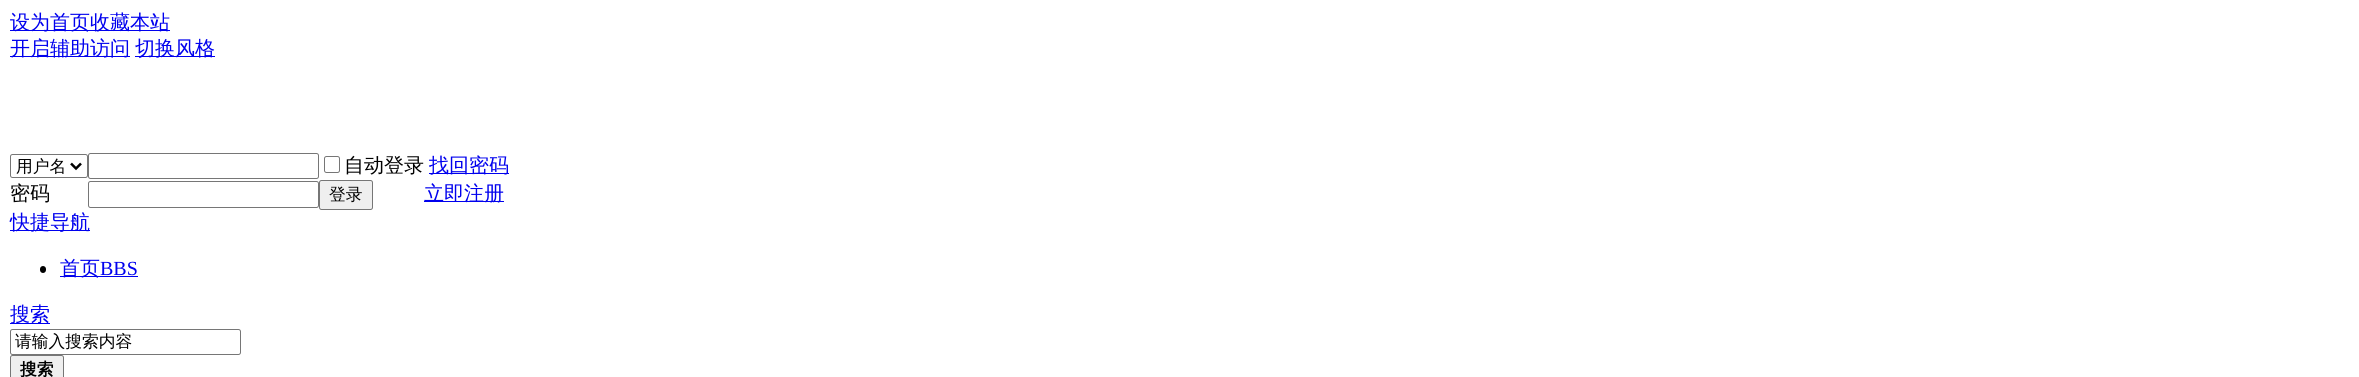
import math
import cairo



def rounded_rect(context, x, y, w, h, r):
    context.new_sub_path()
    for i, (u, v) in enumerate([(x + w - r, y + h - r), (x + r, y + h - r), (x + r, y + r), (x + w - r, y + r)]):
        context.arc(u, v, r, i * math.pi / 2, (i + 1) * math.pi / 2)
    context.close_path()


def draw(context):
    context.set_source_rgb(1, 1, 1)
    context.paint()
    context.set_source_rgb(0, 0, 238 / 255)
    context.rectangle(10, 30, 160, 1)
    context.fill()
    context.rectangle(10, 56, 120, 1)
    context.fill()
    context.rectangle(135, 56, 80, 1)
    context.fill()
    rounded_rect(context, 10.5, 154.5, 77, 23, 2)
    context.set_source_rgb(118 / 255, 118 / 255, 118 / 255)
    context.set_line_width(1)
    context.stroke()
    context.new_path()
    context.move_to(71, 163.5)
    context.line_to(76, 168.5)
    context.line_to(81, 163.5)
    context.set_source_rgb(0, 0, 0)
    context.set_line_width(2.5)
    context.stroke()
    rounded_rect(context, 88.5, 153.5, 230, 25, 2)
    context.set_source_rgb(118 / 255, 118 / 255, 118 / 255)
    context.set_line_width(1)
    context.stroke()
    rounded_rect(context, 324.5, 156.5, 15, 16, 2)
    context.stroke()
    context.set_source_rgb(0, 0, 238 / 255)
    context.rectangle(429, 173, 80, 1)
    context.fill()
    rounded_rect(context, 88.5, 181.5, 230, 26, 2)
    context.set_source_rgb(118 / 255, 118 / 255, 118 / 255)
    context.stroke()
    context.set_source_rgb(239 / 255, 239 / 255, 239 / 255)
    rounded_rect(context, 319.5, 180.5, 53, 29, 2)
    context.fill_preserve()
    context.set_source_rgb(118 / 255, 118 / 255, 118 / 255)
    context.stroke()
    context.set_source_rgb(0, 0, 238 / 255)
    context.rectangle(424, 201, 80, 1)
    context.fill()
    context.rectangle(10, 230, 80, 1)
    context.fill()
    context.set_source_rgb(0, 0, 0)
    rounded_rect(context, 40, 266, 6, 7, 3)
    context.fill()
    context.set_source_rgb(0, 0, 238 / 255)
    context.rectangle(60, 276, 78, 1)
    context.fill()
    context.rectangle(10, 323, 40, 1)
    context.fill()
    rounded_rect(context, 10.5, 329.5, 230, 25, 2)
    context.set_source_rgb(118 / 255, 118 / 255, 118 / 255)
    context.stroke()
    context.set_source_rgb(239 / 255, 239 / 255, 239 / 255)
    rounded_rect(context, 10.5, 355.5, 53, 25, 2)
    context.fill_preserve()
    context.set_source_rgb(118 / 255, 118 / 255, 118 / 255)
    context.stroke()
    context.select_font_face("WenQuanYi Zen Hei Medium")
    context.set_font_size(20)
    context.set_source_rgb(0, 0, 238 / 255)
    context.move_to(10, 29)
    context.show_text("设为首页收藏本站")
    context.move_to(10, 55)
    context.show_text("开启辅助访问")
    context.move_to(135, 55)
    context.show_text("切换风格")
    context.set_font_size(16.75)
    context.set_source_rgb(0, 0, 0)
    context.move_to(16, 172)
    context.show_text("用户名")
    context.set_font_size(20)
    context.move_to(344, 172)
    context.show_text("自动登录")
    context.set_source_rgb(0, 0, 238 / 255)
    context.move_to(429, 172)
    context.show_text("找回密码")
    context.set_source_rgb(0, 0, 0)
    context.move_to(10, 200)
    context.show_text("密码")
    context.set_font_size(16.75)
    context.move_to(329, 200)
    context.show_text("登录")
    context.set_font_size(20)
    context.set_source_rgb(0, 0, 238 / 255)
    context.move_to(424, 200)
    context.show_text("立即注册")
    context.move_to(10, 229)
    context.show_text("快捷导航")
    context.move_to(60, 275)
    context.show_text("首页")
    context.select_font_face("Liberation Serif")
    context.move_to(100, 275)
    context.show_text("BBS")
    context.select_font_face("WenQuanYi Zen Hei Medium")
    context.move_to(10, 321)
    context.show_text("搜索")
    context.set_font_size(16.75)
    context.set_source_rgb(0, 0, 0)
    context.move_to(15, 347)
    context.show_text("请输入搜索内容")
    context.select_font_face("WenQuanYi Zen Hei", cairo.FontSlant.NORMAL, cairo.FontWeight.BOLD)
    context.move_to(20, 375)
    context.show_text("搜索")


surface = cairo.ImageSurface(cairo.Format.RGB24, 2359, 377)
context = cairo.Context(surface)
options = cairo.FontOptions()
options.set_hint_metrics(cairo.HintMetrics.OFF)
options.set_hint_style(cairo.HintStyle.NONE)
context.set_font_options(options)
context.set_miter_limit(4)
draw(context)
surface.write_to_png("out.png")
